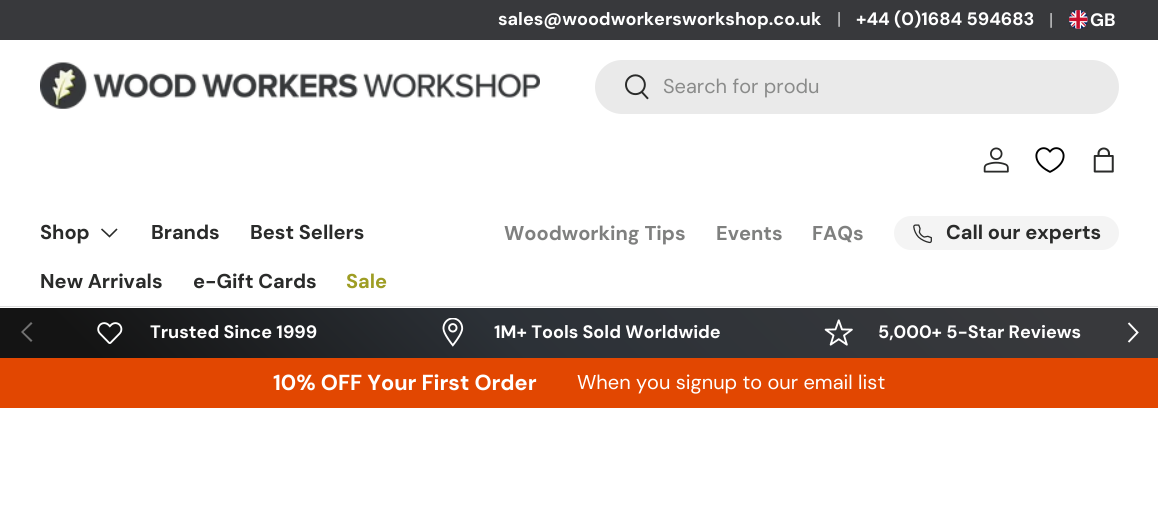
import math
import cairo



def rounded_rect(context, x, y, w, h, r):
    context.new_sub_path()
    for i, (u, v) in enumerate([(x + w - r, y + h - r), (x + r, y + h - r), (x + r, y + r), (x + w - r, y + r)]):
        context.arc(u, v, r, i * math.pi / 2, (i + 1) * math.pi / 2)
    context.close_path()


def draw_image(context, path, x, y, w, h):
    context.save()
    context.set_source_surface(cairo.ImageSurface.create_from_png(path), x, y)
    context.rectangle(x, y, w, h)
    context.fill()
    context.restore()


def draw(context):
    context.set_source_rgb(1, 1, 1)
    context.paint()
    context.set_source_rgb(56 / 255, 57 / 255, 60 / 255)
    context.rectangle(0, 0, 1158, 40)
    context.fill()
    draw_image(context, "images/1.png", 1069, 10, 19, 19)
    context.rectangle(1069.5, 10.5, 18, 18)
    context.set_source_rgba(0, 0, 0, 0.05)
    context.set_line_width(1)
    context.stroke()
    context.set_source_rgb(223 / 255, 223 / 255, 223 / 255)
    context.rectangle(0, 306, 1158, 1)
    context.fill()
    draw_image(context, "images/2.png", 40, 62, 500, 47)
    context.set_source_rgb(234 / 255, 234 / 255, 234 / 255)
    rounded_rect(context, 595, 60, 524, 54, 27)
    context.fill()
    draw_image(context, "images/3.png", 625, 74, 24, 26)
    draw_image(context, "images/4.png", 983, 147, 26, 26)
    draw_image(context, "images/5.png", 1035, 147, 30, 26)
    draw_image(context, "images/6.png", 1093, 147, 21, 26)
    context.new_path()
    context.move_to(117, 229)
    context.line_to(109.5, 236.5)
    context.line_to(101.5, 229)
    context.set_source_rgb(42 / 255, 43 / 255, 42 / 255)
    context.set_line_width(1.6)
    context.stroke()
    gradient = cairo.LinearGradient(460, 153, 1103, 313)
    gradient.add_color_stop_rgba(0.6, 222 / 255, 222 / 255, 222 / 255, 1)
    gradient.add_color_stop_rgba(0.6, 244 / 255, 244 / 255, 244 / 255, 1)
    gradient.add_color_stop_rgba(1, 244 / 255, 244 / 255, 244 / 255, 1)
    context.set_source(gradient)
    rounded_rect(context, 894, 216, 225, 34, 17)
    context.fill()
    draw_image(context, "images/7.png", 913, 224, 19, 20)
    gradient = cairo.LinearGradient(882, 30, 277, 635)
    gradient.add_color_stop_rgba(0.08, 56 / 255, 57 / 255, 60 / 255, 1)
    gradient.add_color_stop_rgba(0.56, 44 / 255, 49 / 255, 55 / 255, 1)
    gradient.add_color_stop_rgba(0.92, 20 / 255, 20 / 255, 20 / 255, 1)
    context.set_source(gradient)
    context.rectangle(0, 308, 1158, 50)
    context.fill()
    context.set_source_rgb(114 / 255, 114 / 255, 114 / 255)
    context.new_path()
    context.move_to(21, 332)
    context.line_to(31, 322)
    context.line_to(32.5, 323.5)
    context.line_to(23.5, 332)
    context.line_to(32.5, 340.5)
    context.line_to(31, 342)
    context.close_path()
    context.fill()
    context.new_path()
    context.move_to(1128.5, 323)
    context.line_to(1137.5, 332.5)
    context.line_to(1128.5, 342)
    context.set_source_rgb(1, 1, 1)
    context.set_line_width(1.9)
    context.stroke()
    draw_image(context, "images/8.png", 97, 322, 26, 22)
    draw_image(context, "images/9.png", 442, 318, 22, 29)
    draw_image(context, "images/10.png", 824, 319, 29, 27)
    context.set_source_rgb(226 / 255, 71 / 255, 1 / 255)
    context.rectangle(0, 358, 1158, 50)
    context.fill()
    context.select_font_face("DM Sans", cairo.FontSlant.NORMAL, cairo.FontWeight.BOLD)
    context.set_font_size(18)
    context.set_source_rgb(1, 1, 1)
    context.move_to(498, 25)
    context.show_text("sales@woodworkersworkshop.co.uk")
    context.select_font_face("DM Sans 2")
    context.set_source_rgb(195 / 255, 196 / 255, 197 / 255)
    context.move_to(837, 25)
    context.show_text("|")
    context.select_font_face("DM Sans", cairo.FontSlant.NORMAL, cairo.FontWeight.BOLD)
    context.set_source_rgb(1, 1, 1)
    context.move_to(856, 25)
    context.show_text("+44 (0)1684 594683")
    context.select_font_face("DM Sans 2")
    context.set_source_rgb(195 / 255, 196 / 255, 197 / 255)
    context.move_to(1049, 26)
    context.show_text("|")
    context.select_font_face("DM Sans", cairo.FontSlant.NORMAL, cairo.FontWeight.BOLD)
    context.set_source_rgb(1, 1, 1)
    context.move_to(1090, 26)
    context.show_text("GB")
    context.select_font_face("DM Sans")
    context.set_font_size(20)
    context.set_source_rgb(138 / 255, 139 / 255, 138 / 255)
    context.move_to(663, 93)
    context.show_text("Search for produ")
    context.select_font_face("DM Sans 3", cairo.FontSlant.NORMAL, cairo.FontWeight.BOLD)
    context.set_source_rgb(42 / 255, 43 / 255, 42 / 255)
    context.move_to(40, 239)
    context.show_text("Shop")
    context.move_to(151, 239)
    context.show_text("Brands")
    context.move_to(250, 239)
    context.show_text("Best Sellers")
    context.move_to(40, 288)
    context.show_text("New Arrivals")
    context.move_to(193, 288)
    context.show_text("e-Gift Cards")
    context.set_source_rgb(158 / 255, 157 / 255, 36 / 255)
    context.move_to(346, 288)
    context.show_text("Sale")
    context.set_source_rgb(127 / 255, 128 / 255, 127 / 255)
    context.move_to(504, 240)
    context.show_text("Woodworking Tips")
    context.move_to(716, 240)
    context.show_text("Events")
    context.move_to(812, 240)
    context.show_text("FAQs")
    context.set_source_rgb(42 / 255, 43 / 255, 42 / 255)
    context.move_to(946, 239)
    context.show_text("Call our experts")
    context.select_font_face("DM Sans", cairo.FontSlant.NORMAL, cairo.FontWeight.BOLD)
    context.set_font_size(18)
    context.set_source_rgb(1, 1, 1)
    context.move_to(150, 338)
    context.show_text("Trusted Since 1999")
    context.move_to(494, 338)
    context.show_text("1M+ Tools Sold Worldwide")
    context.move_to(878, 338)
    context.show_text("5,000+ 5-Star Reviews")
    context.select_font_face("DM Sans 2", cairo.FontSlant.NORMAL, cairo.FontWeight.BOLD)
    context.set_font_size(21.75)
    context.move_to(273, 390)
    context.show_text("10% OFF Your First Order")
    context.select_font_face("DM Sans")
    context.set_font_size(20)
    context.move_to(577, 389)
    context.show_text("When you signup to our email list")


surface = cairo.ImageSurface(cairo.Format.RGB24, 1158, 531)
context = cairo.Context(surface)
options = cairo.FontOptions()
options.set_hint_metrics(cairo.HintMetrics.OFF)
options.set_hint_style(cairo.HintStyle.NONE)
context.set_font_options(options)
context.set_miter_limit(4)
draw(context)
surface.write_to_png("out.png")
